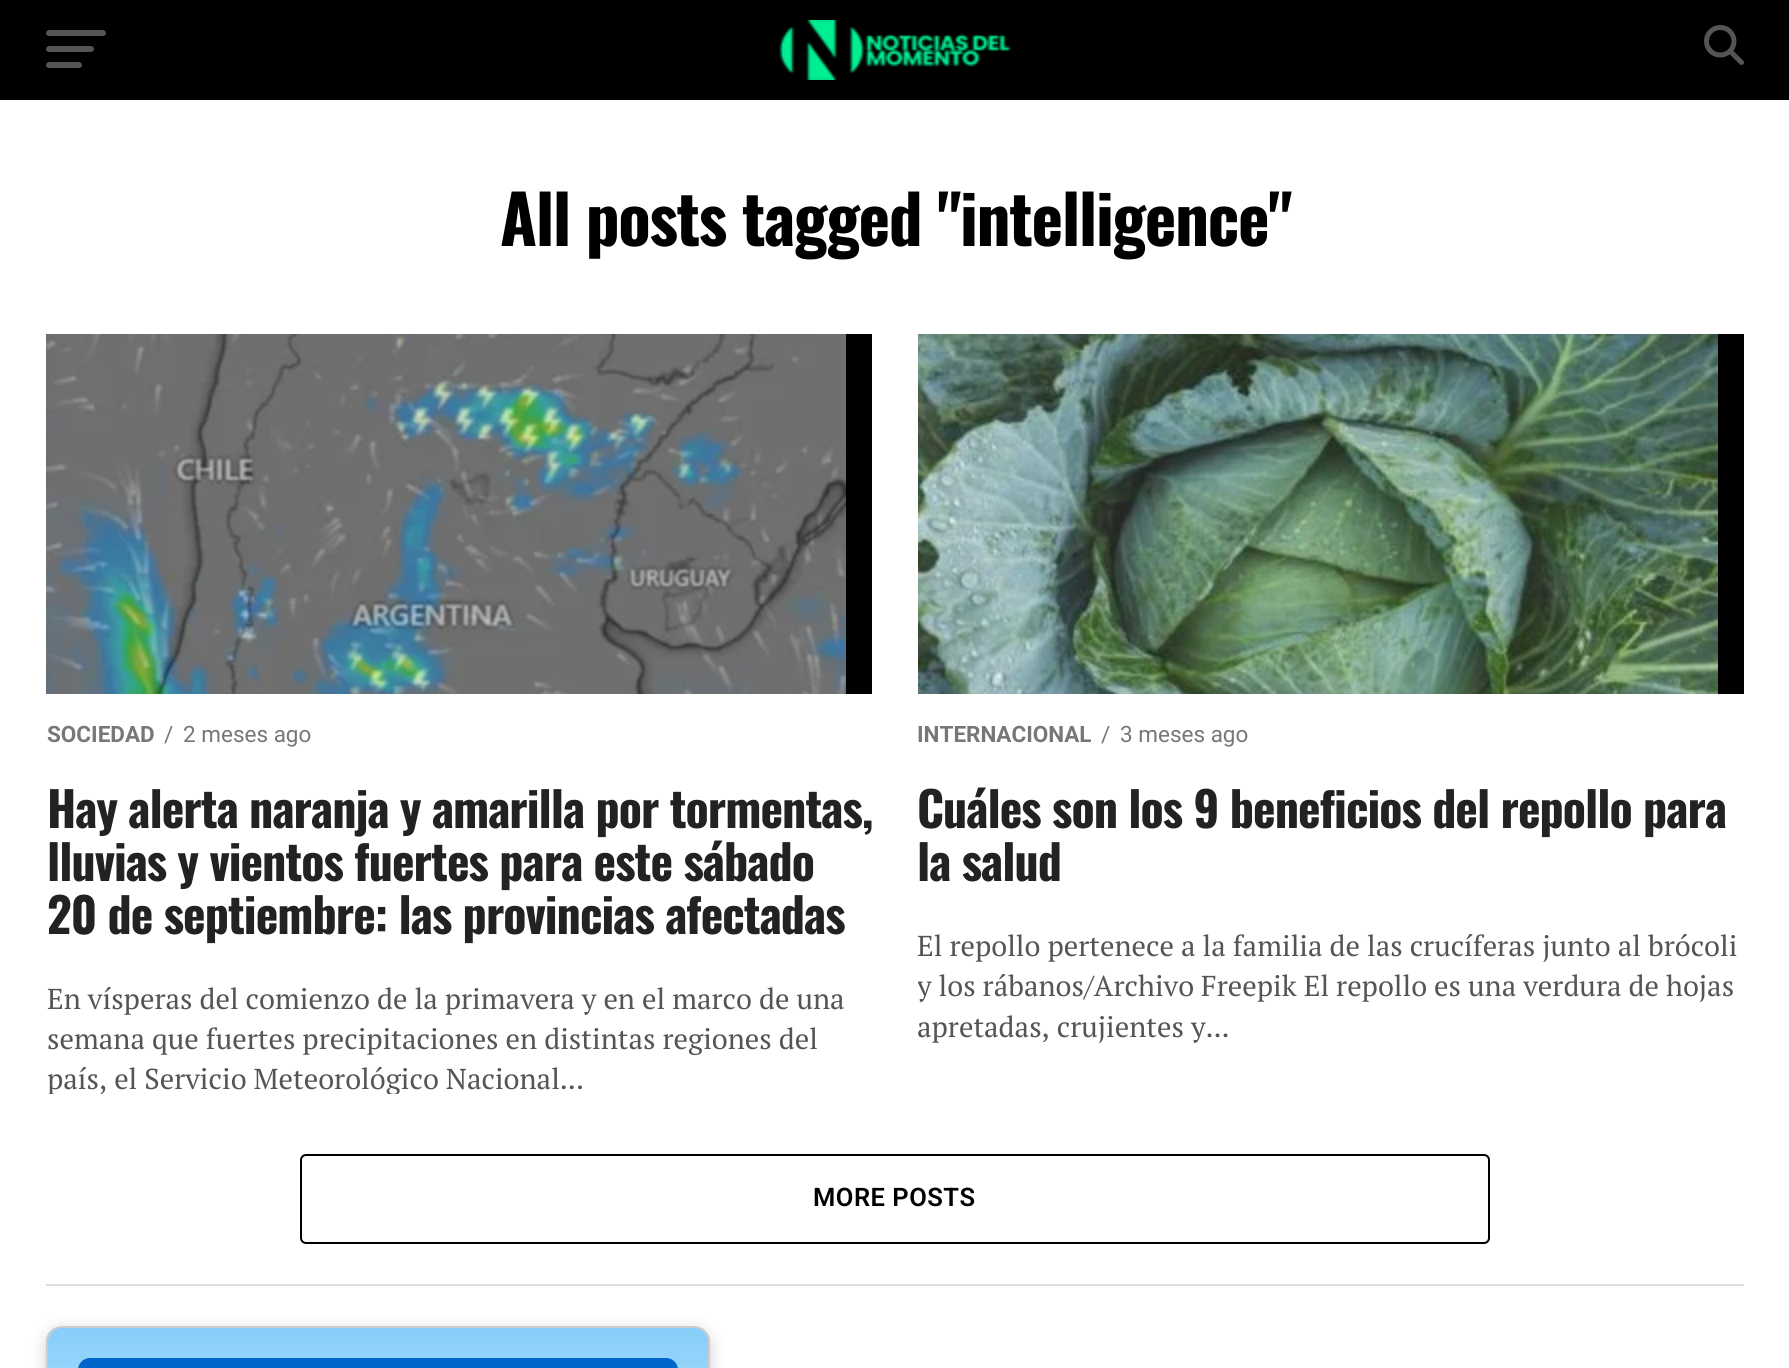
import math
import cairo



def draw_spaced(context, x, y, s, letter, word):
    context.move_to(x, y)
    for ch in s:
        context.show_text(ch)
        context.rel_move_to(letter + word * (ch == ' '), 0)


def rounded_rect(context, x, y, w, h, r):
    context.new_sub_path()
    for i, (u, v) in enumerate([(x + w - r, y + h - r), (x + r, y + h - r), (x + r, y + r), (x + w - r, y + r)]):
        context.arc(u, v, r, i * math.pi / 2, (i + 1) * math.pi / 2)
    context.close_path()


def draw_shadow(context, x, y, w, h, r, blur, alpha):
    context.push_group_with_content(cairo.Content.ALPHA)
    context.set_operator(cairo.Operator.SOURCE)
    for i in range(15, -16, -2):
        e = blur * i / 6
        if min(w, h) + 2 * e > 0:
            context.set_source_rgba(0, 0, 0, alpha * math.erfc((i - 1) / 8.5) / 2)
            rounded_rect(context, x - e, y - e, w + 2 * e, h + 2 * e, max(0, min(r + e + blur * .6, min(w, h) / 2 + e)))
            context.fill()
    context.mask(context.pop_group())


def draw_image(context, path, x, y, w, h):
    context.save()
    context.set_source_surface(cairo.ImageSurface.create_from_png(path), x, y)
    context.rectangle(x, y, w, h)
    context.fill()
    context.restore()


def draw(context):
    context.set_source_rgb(1, 1, 1)
    context.paint()
    context.set_source_rgb(0, 0, 0)
    context.rectangle(0, 0, 1789, 100)
    context.fill()
    context.set_source_rgb(85 / 255, 85 / 255, 85 / 255)
    rounded_rect(context, 46, 30, 60, 6, 3)
    context.fill()
    rounded_rect(context, 46, 46, 48, 6, 3)
    context.fill()
    rounded_rect(context, 46, 62, 36, 6, 3)
    context.fill()
    draw_image(context, "images/1.png", 779, 20, 232, 60)
    draw_image(context, "images/2.png", 1704, 25, 40, 40)
    context.set_source_rgb(0, 0, 0)
    context.rectangle(846, 334, 26, 360)
    context.fill()
    draw_image(context, "images/3.png", 46, 334, 800, 360)
    context.rectangle(1718, 334, 26, 360)
    context.fill()
    draw_image(context, "images/4.png", 918, 334, 800, 360)
    rounded_rect(context, 301, 1155, 1188, 88, 5)
    context.stroke()
    context.set_source_rgb(221 / 255, 221 / 255, 221 / 255)
    context.rectangle(46, 1284, 1698, 2)
    context.fill()
    context.set_source_rgb(0, 0, 0)
    draw_shadow(context, 46, 1330, 664, 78, 16, 8, 0.2)
    context.save()
    rounded_rect(context, 46, 1326, 664, 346, 16)
    context.clip()
    gradient = cairo.LinearGradient(378, 1328, 378, 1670)
    gradient.add_color_stop_rgba(0, 135 / 255, 206 / 255, 250 / 255, 1)
    gradient.add_color_stop_rgba(1, 1, 1, 1, 1)
    context.set_source(gradient)
    context.rectangle(46, 1328, 664, 40)
    context.fill()
    context.restore()
    rounded_rect(context, 47, 1327, 662, 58, 15)
    context.set_source_rgb(204 / 255, 204 / 255, 204 / 255)
    context.stroke()
    context.set_source_rgb(0, 102 / 255, 204 / 255)
    rounded_rect(context, 78, 1358, 600, 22, 12)
    context.fill()
    context.select_font_face("Oswald", cairo.FontSlant.NORMAL, cairo.FontWeight.BOLD)
    context.set_font_size(67.25)
    context.set_source_rgb(0, 0, 0)
    draw_spaced(context, 500, 246, "All posts tagged \"intelligence\"", -1.35, 0)
    context.select_font_face("Roboto", cairo.FontSlant.NORMAL, cairo.FontWeight.BOLD)
    context.set_font_size(22.5)
    context.set_source_rgb(119 / 255, 119 / 255, 119 / 255)
    context.move_to(47, 742)
    context.show_text("SOCIEDAD")
    context.select_font_face("Roboto")
    context.move_to(164, 742)
    context.show_text("/")
    context.move_to(183, 742)
    context.show_text("2 meses ago")
    context.select_font_face("Oswald", cairo.FontSlant.NORMAL, cairo.FontWeight.BOLD)
    context.set_font_size(48)
    context.set_source_rgb(34 / 255, 34 / 255, 34 / 255)
    draw_spaced(context, 47, 828, "Hay alerta naranja y amarilla por tormentas,", -0.95, 0)
    draw_spaced(context, 47, 881, "lluvias y vientos fuertes para este sábado", -0.95, 0)
    draw_spaced(context, 47, 934, "20 de septiembre: las provincias afectadas", -0.95, 0)
    context.select_font_face("PT Serif")
    context.set_font_size(28.8)
    context.set_source_rgb(85 / 255, 85 / 255, 85 / 255)
    context.move_to(47, 1009)
    context.show_text("En vísperas del comienzo de la primavera y en el marco de una")
    context.move_to(47, 1049)
    context.show_text("semana que fuertes precipitaciones en distintas regiones del")
    context.save()
    context.rectangle(46, 334, 826, 760)
    context.clip()
    context.move_to(47, 1089)
    context.show_text("país, el Servicio Meteorológico Nacional...")
    context.restore()
    context.select_font_face("Roboto", cairo.FontSlant.NORMAL, cairo.FontWeight.BOLD)
    context.set_font_size(22.5)
    context.set_source_rgb(119 / 255, 119 / 255, 119 / 255)
    context.move_to(917, 742)
    context.show_text("INTERNACIONAL")
    context.select_font_face("Roboto")
    context.move_to(1101, 742)
    context.show_text("/")
    context.move_to(1120, 742)
    context.show_text("3 meses ago")
    context.select_font_face("Oswald", cairo.FontSlant.NORMAL, cairo.FontWeight.BOLD)
    context.set_font_size(48)
    context.set_source_rgb(34 / 255, 34 / 255, 34 / 255)
    draw_spaced(context, 917, 828, "Cuáles son los 9 beneficios del repollo para", -0.95, 0)
    draw_spaced(context, 917, 881, "la salud", -0.95, 0)
    context.select_font_face("PT Serif")
    context.set_font_size(28.8)
    context.set_source_rgb(85 / 255, 85 / 255, 85 / 255)
    context.move_to(917, 956)
    context.show_text("El repollo pertenece a la familia de las crucíferas junto al brócoli")
    context.save()
    context.rectangle(918, 334, 826, 760)
    context.clip()
    context.move_to(917, 996)
    context.show_text("y los rábanos/Archivo Freepik El repollo es una verdura de hojas")
    context.restore()
    context.move_to(917, 1037)
    context.show_text("apretadas, crujientes y...")
    context.select_font_face("Roboto SemiBold")
    context.set_font_size(25.5)
    context.set_source_rgb(0, 0, 0)
    draw_spaced(context, 813, 1206, "MORE POSTS", 0.5, 0)


surface = cairo.ImageSurface(cairo.Format.RGB24, 1789, 1368)
context = cairo.Context(surface)
options = cairo.FontOptions()
options.set_hint_metrics(cairo.HintMetrics.OFF)
options.set_hint_style(cairo.HintStyle.NONE)
context.set_font_options(options)
context.set_miter_limit(4)
draw(context)
surface.write_to_png("out.png")
